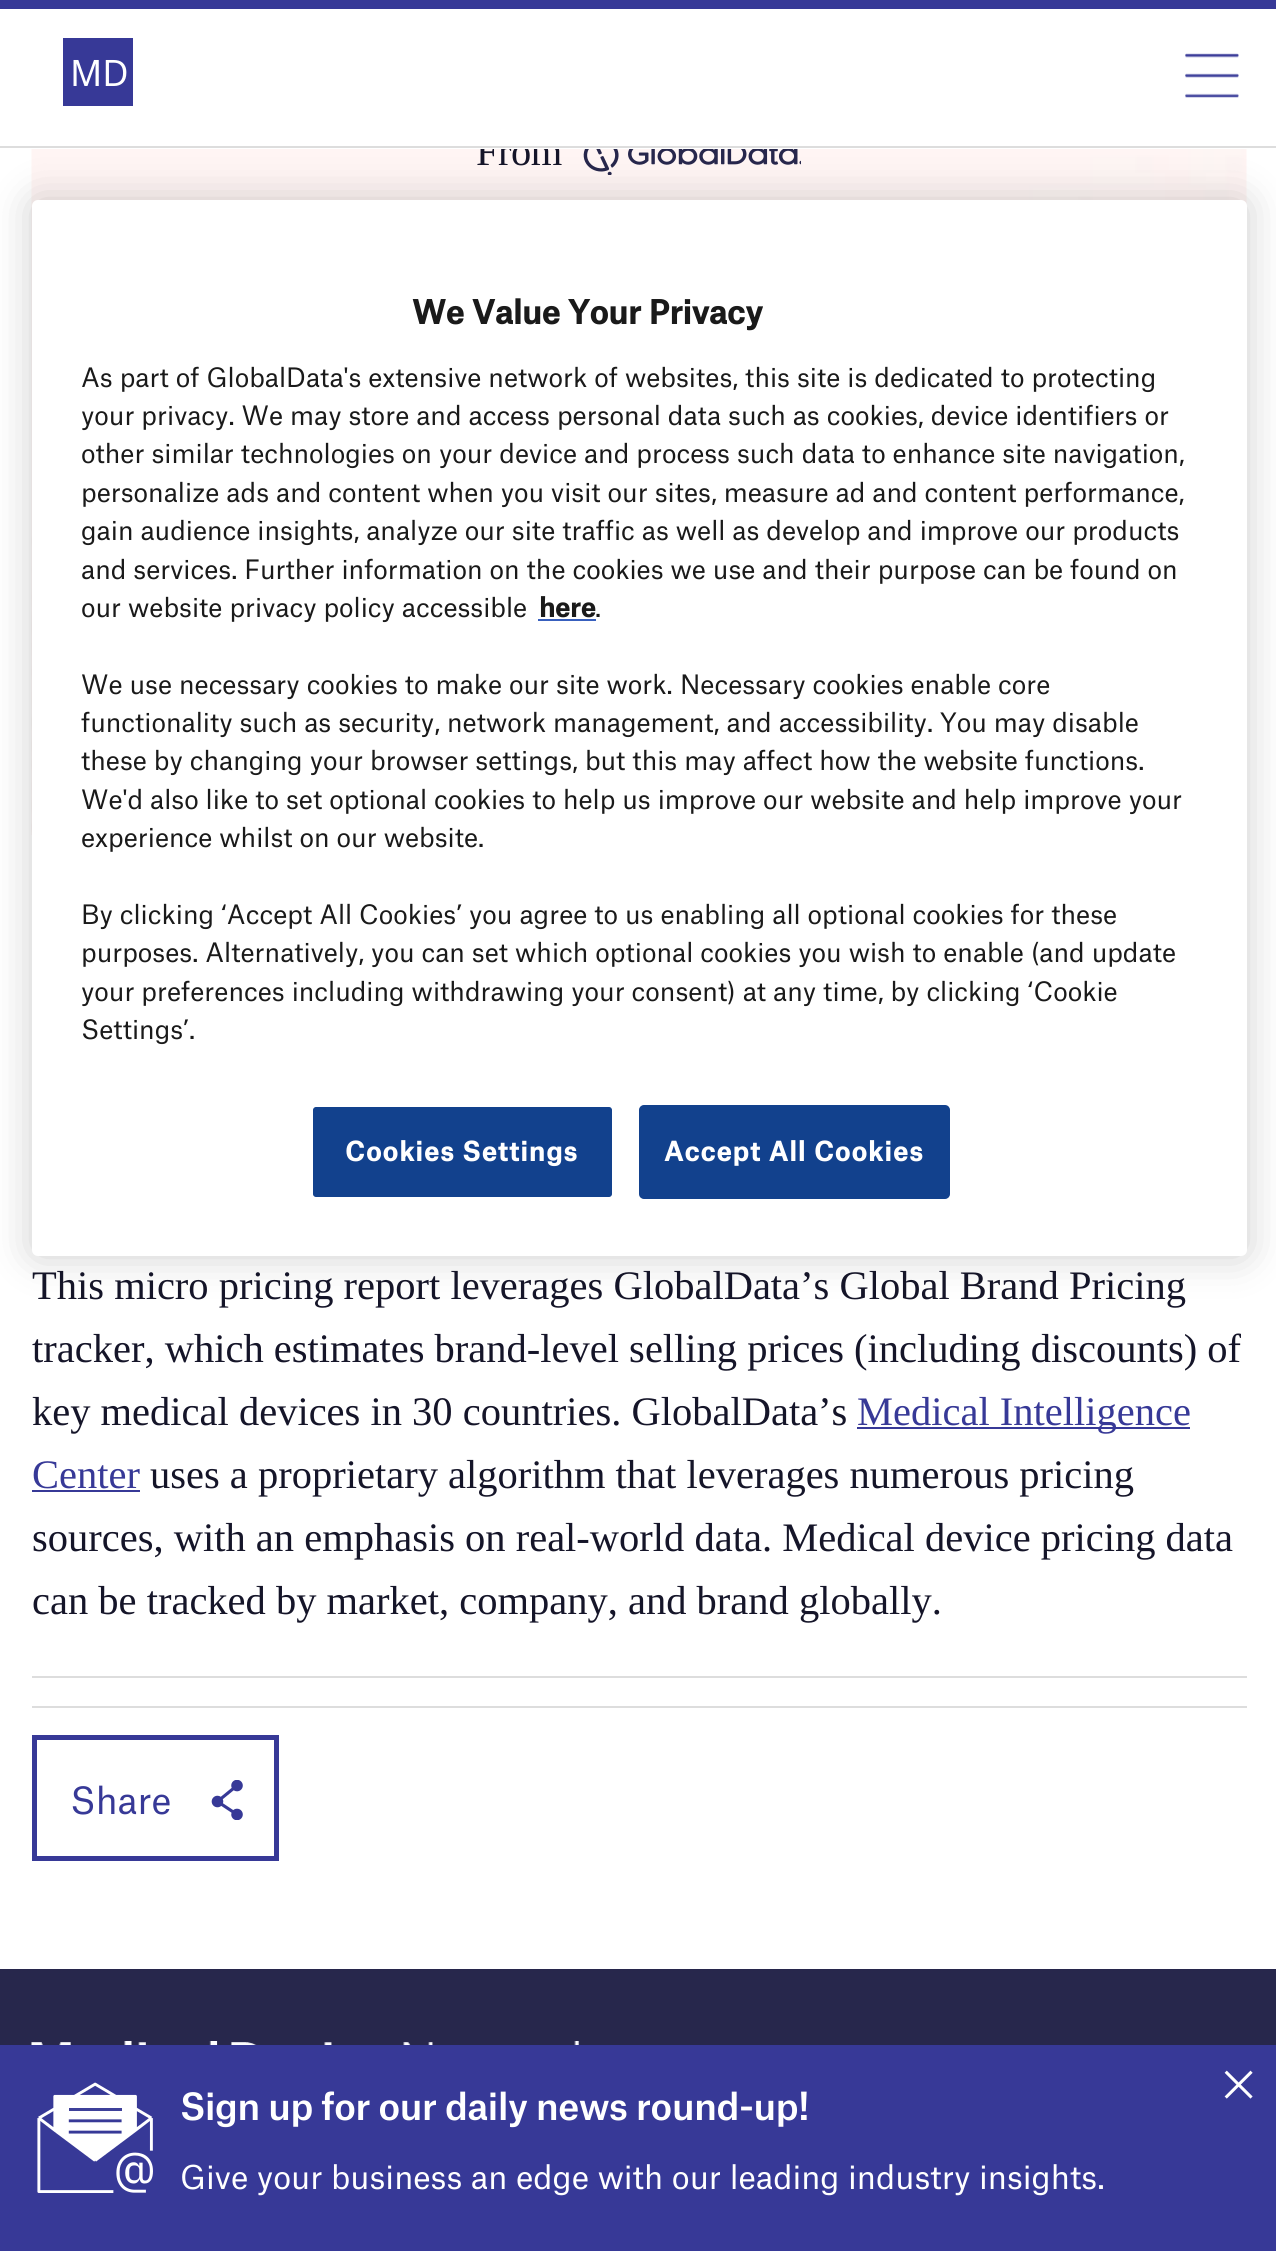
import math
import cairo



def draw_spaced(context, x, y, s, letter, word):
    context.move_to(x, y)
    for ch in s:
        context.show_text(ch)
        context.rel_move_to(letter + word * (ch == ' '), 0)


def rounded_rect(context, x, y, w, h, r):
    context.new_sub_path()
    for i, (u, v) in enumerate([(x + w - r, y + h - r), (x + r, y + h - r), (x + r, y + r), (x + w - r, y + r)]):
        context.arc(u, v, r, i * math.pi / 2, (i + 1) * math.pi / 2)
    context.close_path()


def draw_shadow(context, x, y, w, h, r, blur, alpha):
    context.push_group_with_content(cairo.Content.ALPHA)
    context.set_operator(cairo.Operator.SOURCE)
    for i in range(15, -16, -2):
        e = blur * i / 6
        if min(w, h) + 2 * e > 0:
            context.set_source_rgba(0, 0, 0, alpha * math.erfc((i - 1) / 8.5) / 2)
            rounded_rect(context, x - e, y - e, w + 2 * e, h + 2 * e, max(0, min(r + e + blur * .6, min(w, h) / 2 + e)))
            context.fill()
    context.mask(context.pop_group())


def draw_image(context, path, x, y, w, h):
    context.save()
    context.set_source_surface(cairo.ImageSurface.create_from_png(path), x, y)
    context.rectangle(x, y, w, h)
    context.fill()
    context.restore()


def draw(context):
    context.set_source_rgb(1, 1, 1)
    context.paint()
    context.set_source_rgb(55 / 255, 57 / 255, 151 / 255)
    context.rectangle(0, 0, 1276, 9)
    context.fill()
    context.rectangle(63, 38, 70, 68)
    context.fill()
    draw_image(context, "images/1.png", 1185, 53, 54, 45)
    draw_image(context, "images/2.png", 31, 149, 1216, 686)
    draw_image(context, "images/3.png", 583, 149, 218, 26)
    context.set_source_rgb(221 / 255, 221 / 255, 221 / 255)
    context.rectangle(32, 1676, 1215, 2)
    context.fill()
    context.set_source_rgb(55 / 255, 57 / 255, 151 / 255)
    context.rectangle(857, 1427, 333, 2)
    context.fill()
    context.rectangle(32, 1490, 108, 2)
    context.fill()
    context.set_source_rgb(221 / 255, 221 / 255, 221 / 255)
    context.rectangle(32, 1706, 1215, 2)
    context.fill()
    context.rectangle(34.5, 1737.5, 242, 121)
    context.set_source_rgb(55 / 255, 57 / 255, 151 / 255)
    context.set_line_width(5)
    context.stroke()
    draw_image(context, "images/4.png", 211, 1780, 32, 40)
    context.set_source_rgb(39 / 255, 39 / 255, 76 / 255)
    context.rectangle(0, 1969, 1276, 76)
    context.fill()
    draw_image(context, "images/5.png", 31, 2041, 548, 4)
    context.set_source_rgb(55 / 255, 57 / 255, 151 / 255)
    context.rectangle(0, 2045, 1276, 206)
    context.fill()
    draw_image(context, "images/6.png", 1224, 2070, 29, 29)
    draw_image(context, "images/7.png", 37, 2082, 116, 111)
    context.select_font_face("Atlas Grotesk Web")
    context.set_font_size(34)
    context.set_source_rgb(1, 1, 1)
    context.move_to(70, 86)
    context.show_text("MD")
    context.select_font_face("Liberation Serif")
    context.set_font_size(40.5)
    context.set_source_rgb(21 / 255, 21 / 255, 41 / 255)
    draw_spaced(context, 476, 165, "From", -0.5, 0)
    context.set_source_rgb(1, 1, 1)
    context.rectangle(477, 138, 83, 11)
    context.fill()
    context.set_source_rgb(221 / 255, 221 / 255, 221 / 255)
    context.rectangle(0, 146, 1276, 2)
    context.fill()
    context.set_source_rgb(21 / 255, 21 / 255, 41 / 255)
    context.move_to(32, 1299)
    context.show_text("This micro pricing report leverages GlobalData’s Global Brand Pricing")
    context.move_to(32, 1362)
    context.show_text("tracker, which estimates brand-level selling prices (including discounts) of")
    context.move_to(32, 1425)
    context.show_text("key medical devices in 30 countries. GlobalData’s")
    context.set_source_rgb(55 / 255, 57 / 255, 151 / 255)
    context.move_to(857, 1425)
    context.show_text("Medical Intelligence")
    context.move_to(32, 1488)
    context.show_text("Center")
    context.set_source_rgb(21 / 255, 21 / 255, 41 / 255)
    context.move_to(150, 1488)
    context.show_text("uses a proprietary algorithm that leverages numerous pricing")
    context.move_to(32, 1551)
    context.show_text("sources, with an emphasis on real-world data. Medical device pricing data")
    context.move_to(32, 1614)
    context.show_text("can be tracked by market, company, and brand globally.")
    context.select_font_face("Atlas Grotesk Web")
    context.set_font_size(36)
    context.set_source_rgb(55 / 255, 57 / 255, 151 / 255)
    context.move_to(70, 1814)
    context.show_text("Share")
    context.set_source_rgb(0, 0, 0)
    draw_shadow(context, 32, 200, 1215, 1056, 6, 20, 0.2)
    context.set_source_rgb(1, 1, 1)
    rounded_rect(context, 32, 200, 1215, 1056, 6)
    context.fill()
    context.select_font_face("Atlas Grotesk Web", cairo.FontSlant.NORMAL, cairo.FontWeight.BOLD)
    context.set_font_size(31.5)
    context.set_source_rgb(26 / 255, 26 / 255, 26 / 255)
    context.move_to(412, 324)
    context.show_text("We Value Your Privacy")
    context.select_font_face("Atlas Grotesk Web")
    context.set_font_size(25.6)
    context.move_to(81, 387)
    context.show_text("As part of GlobalData's extensive network of websites, this site is dedicated to protecting")
    context.move_to(81, 425)
    context.show_text("your privacy. We may store and access personal data such as cookies, device identifiers or")
    context.move_to(81, 463)
    context.show_text("other similar technologies on your device and process such data to enhance site navigation,")
    context.move_to(81, 502)
    context.show_text("personalize ads and content when you visit our sites, measure ad and content performance,")
    context.move_to(81, 540)
    context.show_text("gain audience insights, analyze our site traffic as well as develop and improve our products")
    context.move_to(81, 579)
    context.show_text("and services. Further information on the cookies we use and their purpose can be found on")
    context.move_to(81, 617)
    context.show_text("our website privacy policy accessible")
    context.select_font_face("Atlas Grotesk Web", cairo.FontSlant.NORMAL, cairo.FontWeight.BOLD)
    context.move_to(539, 617)
    context.show_text("here")
    context.set_source_rgb(56 / 255, 96 / 255, 190 / 255)
    context.rectangle(538, 619, 58, 2)
    context.fill()
    context.select_font_face("Atlas Grotesk Web")
    context.set_source_rgb(26 / 255, 26 / 255, 26 / 255)
    context.move_to(595, 617)
    context.show_text(".")
    context.move_to(81, 694)
    context.show_text("We use necessary cookies to make our site work.")
    context.move_to(680, 694)
    context.show_text("Necessary cookies enable core")
    context.move_to(81, 732)
    context.show_text("functionality such as security, network management, and accessibility. You may disable")
    context.move_to(81, 770)
    context.show_text("these by changing your browser settings, but this may affect how the website functions.")
    context.move_to(81, 809)
    context.show_text("We'd also like to set optional cookies to help us improve our website and help improve your")
    context.move_to(81, 847)
    context.show_text("experience whilst on our website.")
    context.move_to(81, 924)
    context.show_text("By clicking ‘Accept All Cookies’ you agree to us enabling all optional cookies for these")
    context.move_to(81, 962)
    context.show_text("purposes. Alternatively, you can set which optional cookies you wish to enable (and update")
    context.move_to(81, 1001)
    context.show_text("your preferences including withdrawing your consent) at any time, by clicking ‘Cookie")
    context.move_to(81, 1039)
    context.show_text("Settings’.")
    context.set_source_rgb(18 / 255, 65 / 255, 141 / 255)
    rounded_rect(context, 312, 1106, 301, 92, 4)
    context.fill_preserve()
    context.set_source_rgb(1, 1, 1)
    context.set_line_width(2)
    context.stroke()
    context.select_font_face("Atlas Grotesk Web", cairo.FontSlant.NORMAL, cairo.FontWeight.BOLD)
    draw_spaced(context, 345, 1161, "Cookies Settings", 1.25, 0)
    context.set_source_rgb(18 / 255, 65 / 255, 141 / 255)
    rounded_rect(context, 640, 1106, 309, 92, 4)
    context.fill_preserve()
    context.stroke()
    context.set_source_rgb(1, 1, 1)
    draw_spaced(context, 664, 1161, "Accept All Cookies", 1.25, 0)
    context.select_font_face("Atlas Grotesk Web Medium")
    context.set_font_size(36)
    draw_spaced(context, 180, 2120, "Sign up for our daily news round-up!", -0.35, 0)
    context.select_font_face("Atlas Grotesk Web")
    context.set_font_size(31.5)
    context.move_to(180, 2189)
    context.show_text("Give your business an edge with our leading industry insights.")


surface = cairo.ImageSurface(cairo.Format.RGB24, 1276, 2251)
context = cairo.Context(surface)
options = cairo.FontOptions()
options.set_hint_metrics(cairo.HintMetrics.OFF)
options.set_hint_style(cairo.HintStyle.NONE)
context.set_font_options(options)
context.set_miter_limit(4)
draw(context)
surface.write_to_png("out.png")
